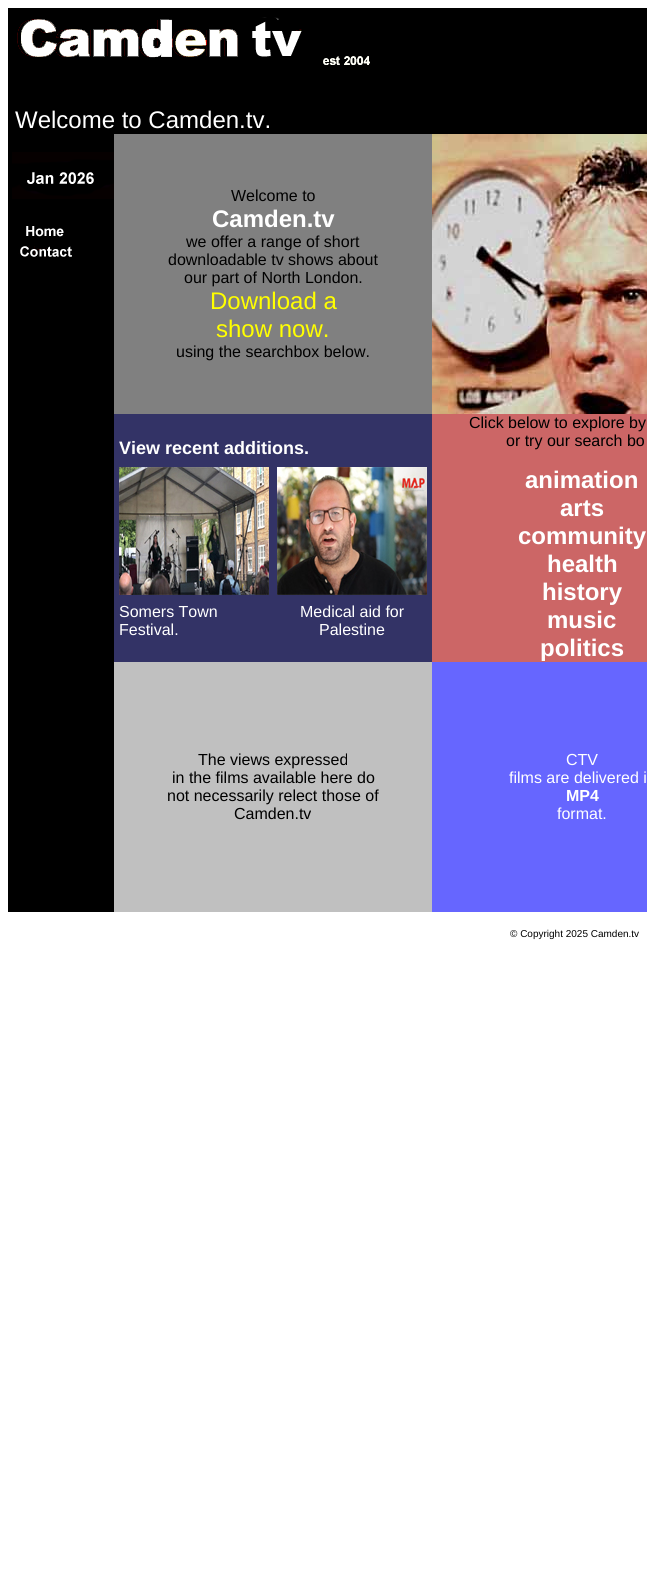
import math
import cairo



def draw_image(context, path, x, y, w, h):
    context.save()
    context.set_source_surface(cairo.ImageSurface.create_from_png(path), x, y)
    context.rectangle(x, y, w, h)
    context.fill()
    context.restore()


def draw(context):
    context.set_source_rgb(1, 1, 1)
    context.paint()
    context.set_source_rgb(0, 0, 0)
    context.rectangle(8, 8, 639, 126)
    context.fill()
    draw_image(context, "images/1.png", 17, 17, 285, 41)
    draw_image(context, "images/2.png", 323, 56, 47, 9)
    context.rectangle(8, 134, 106, 778)
    context.fill()
    draw_image(context, "images/3.png", 12, 152, 102, 47)
    draw_image(context, "images/4.png", 26, 226, 38, 11)
    draw_image(context, "images/5.png", 18, 246, 54, 12)
    context.set_source_rgb(128 / 255, 128 / 255, 128 / 255)
    context.rectangle(114, 134, 318, 280)
    context.fill()
    draw_image(context, "images/6.png", 432, 134, 215, 280)
    context.set_source_rgb(51 / 255, 51 / 255, 102 / 255)
    context.rectangle(114, 414, 318, 248)
    context.fill()
    draw_image(context, "images/7.png", 119, 467, 150, 128)
    draw_image(context, "images/8.png", 277, 467, 150, 128)
    context.set_source_rgb(204 / 255, 102 / 255, 102 / 255)
    context.rectangle(432, 414, 215, 248)
    context.fill()
    context.set_source_rgb(192 / 255, 192 / 255, 192 / 255)
    context.rectangle(114, 662, 318, 250)
    context.fill()
    context.set_source_rgb(102 / 255, 102 / 255, 1)
    context.rectangle(432, 662, 215, 250)
    context.fill()
    context.select_font_face("Liberation Sans")
    context.set_font_size(24)
    context.set_source_rgb(1, 1, 1)
    context.move_to(15, 128)
    context.show_text("Welcome to Camden.tv.")
    context.set_font_size(16)
    context.set_source_rgb(0, 0, 0)
    context.move_to(231, 201)
    context.show_text("Welcome to")
    context.select_font_face("Liberation Sans", cairo.FontSlant.NORMAL, cairo.FontWeight.BOLD)
    context.set_font_size(24)
    context.set_source_rgb(1, 1, 1)
    context.move_to(212, 227)
    context.show_text("Camden.tv")
    context.select_font_face("Liberation Sans")
    context.set_font_size(16)
    context.set_source_rgb(0, 0, 0)
    context.move_to(186, 247)
    context.show_text("we offer a range of short")
    context.move_to(168, 265)
    context.show_text("downloadable tv shows about")
    context.move_to(184, 283)
    context.show_text("our part of North London.")
    context.set_font_size(24)
    context.set_source_rgb(1, 1, 0)
    context.move_to(210, 309)
    context.show_text("Download a")
    context.move_to(216, 337)
    context.show_text("show now.")
    context.set_font_size(16)
    context.set_source_rgb(0, 0, 0)
    context.move_to(176, 357)
    context.show_text("using the searchbox below.")
    context.select_font_face("Liberation Sans", cairo.FontSlant.NORMAL, cairo.FontWeight.BOLD)
    context.set_font_size(18)
    context.set_source_rgb(1, 1, 1)
    context.move_to(119, 454)
    context.show_text("View recent additions.")
    context.select_font_face("Liberation Sans")
    context.set_font_size(16)
    context.move_to(119, 617)
    context.show_text("Somers Town")
    context.move_to(119, 635)
    context.show_text("Festival.")
    context.move_to(300, 617)
    context.show_text("Medical aid for")
    context.move_to(319, 635)
    context.show_text("Palestine")
    context.set_source_rgb(0, 0, 0)
    context.move_to(469, 428)
    context.show_text("Click below to explore by")
    context.move_to(506, 446)
    context.show_text("or try our search bo")
    context.select_font_face("Liberation Sans", cairo.FontSlant.NORMAL, cairo.FontWeight.BOLD)
    context.set_font_size(24)
    context.set_source_rgb(1, 1, 1)
    context.move_to(525, 488)
    context.show_text("animation")
    context.move_to(560, 516)
    context.show_text("arts")
    context.move_to(518, 544)
    context.show_text("community")
    context.move_to(547, 572)
    context.show_text("health")
    context.move_to(542, 600)
    context.show_text("history")
    context.move_to(547, 628)
    context.show_text("music")
    context.move_to(540, 656)
    context.show_text("politics")
    context.select_font_face("Liberation Sans")
    context.set_font_size(16)
    context.set_source_rgb(0, 0, 0)
    context.move_to(198, 765)
    context.show_text("The views expressed")
    context.move_to(172, 783)
    context.show_text("in the films available here do")
    context.move_to(167, 801)
    context.show_text("not necessarily relect those of")
    context.move_to(234, 819)
    context.show_text("Camden.tv")
    context.set_source_rgb(1, 1, 1)
    context.move_to(566, 765)
    context.show_text("CTV")
    context.move_to(509, 783)
    context.show_text("films are delivered i")
    context.select_font_face("Liberation Sans", cairo.FontSlant.NORMAL, cairo.FontWeight.BOLD)
    context.move_to(566, 801)
    context.show_text("MP4")
    context.select_font_face("Liberation Sans")
    context.move_to(557, 819)
    context.show_text("format.")
    context.set_font_size(10)
    context.set_source_rgb(0, 0, 0)
    context.move_to(510, 937)
    context.show_text("© Copyright 2025 Camden.tv")


surface = cairo.ImageSurface(cairo.Format.RGB24, 647, 1576)
context = cairo.Context(surface)
options = cairo.FontOptions()
options.set_hint_metrics(cairo.HintMetrics.OFF)
options.set_hint_style(cairo.HintStyle.NONE)
context.set_font_options(options)
context.set_miter_limit(4)
draw(context)
surface.write_to_png("out.png")
